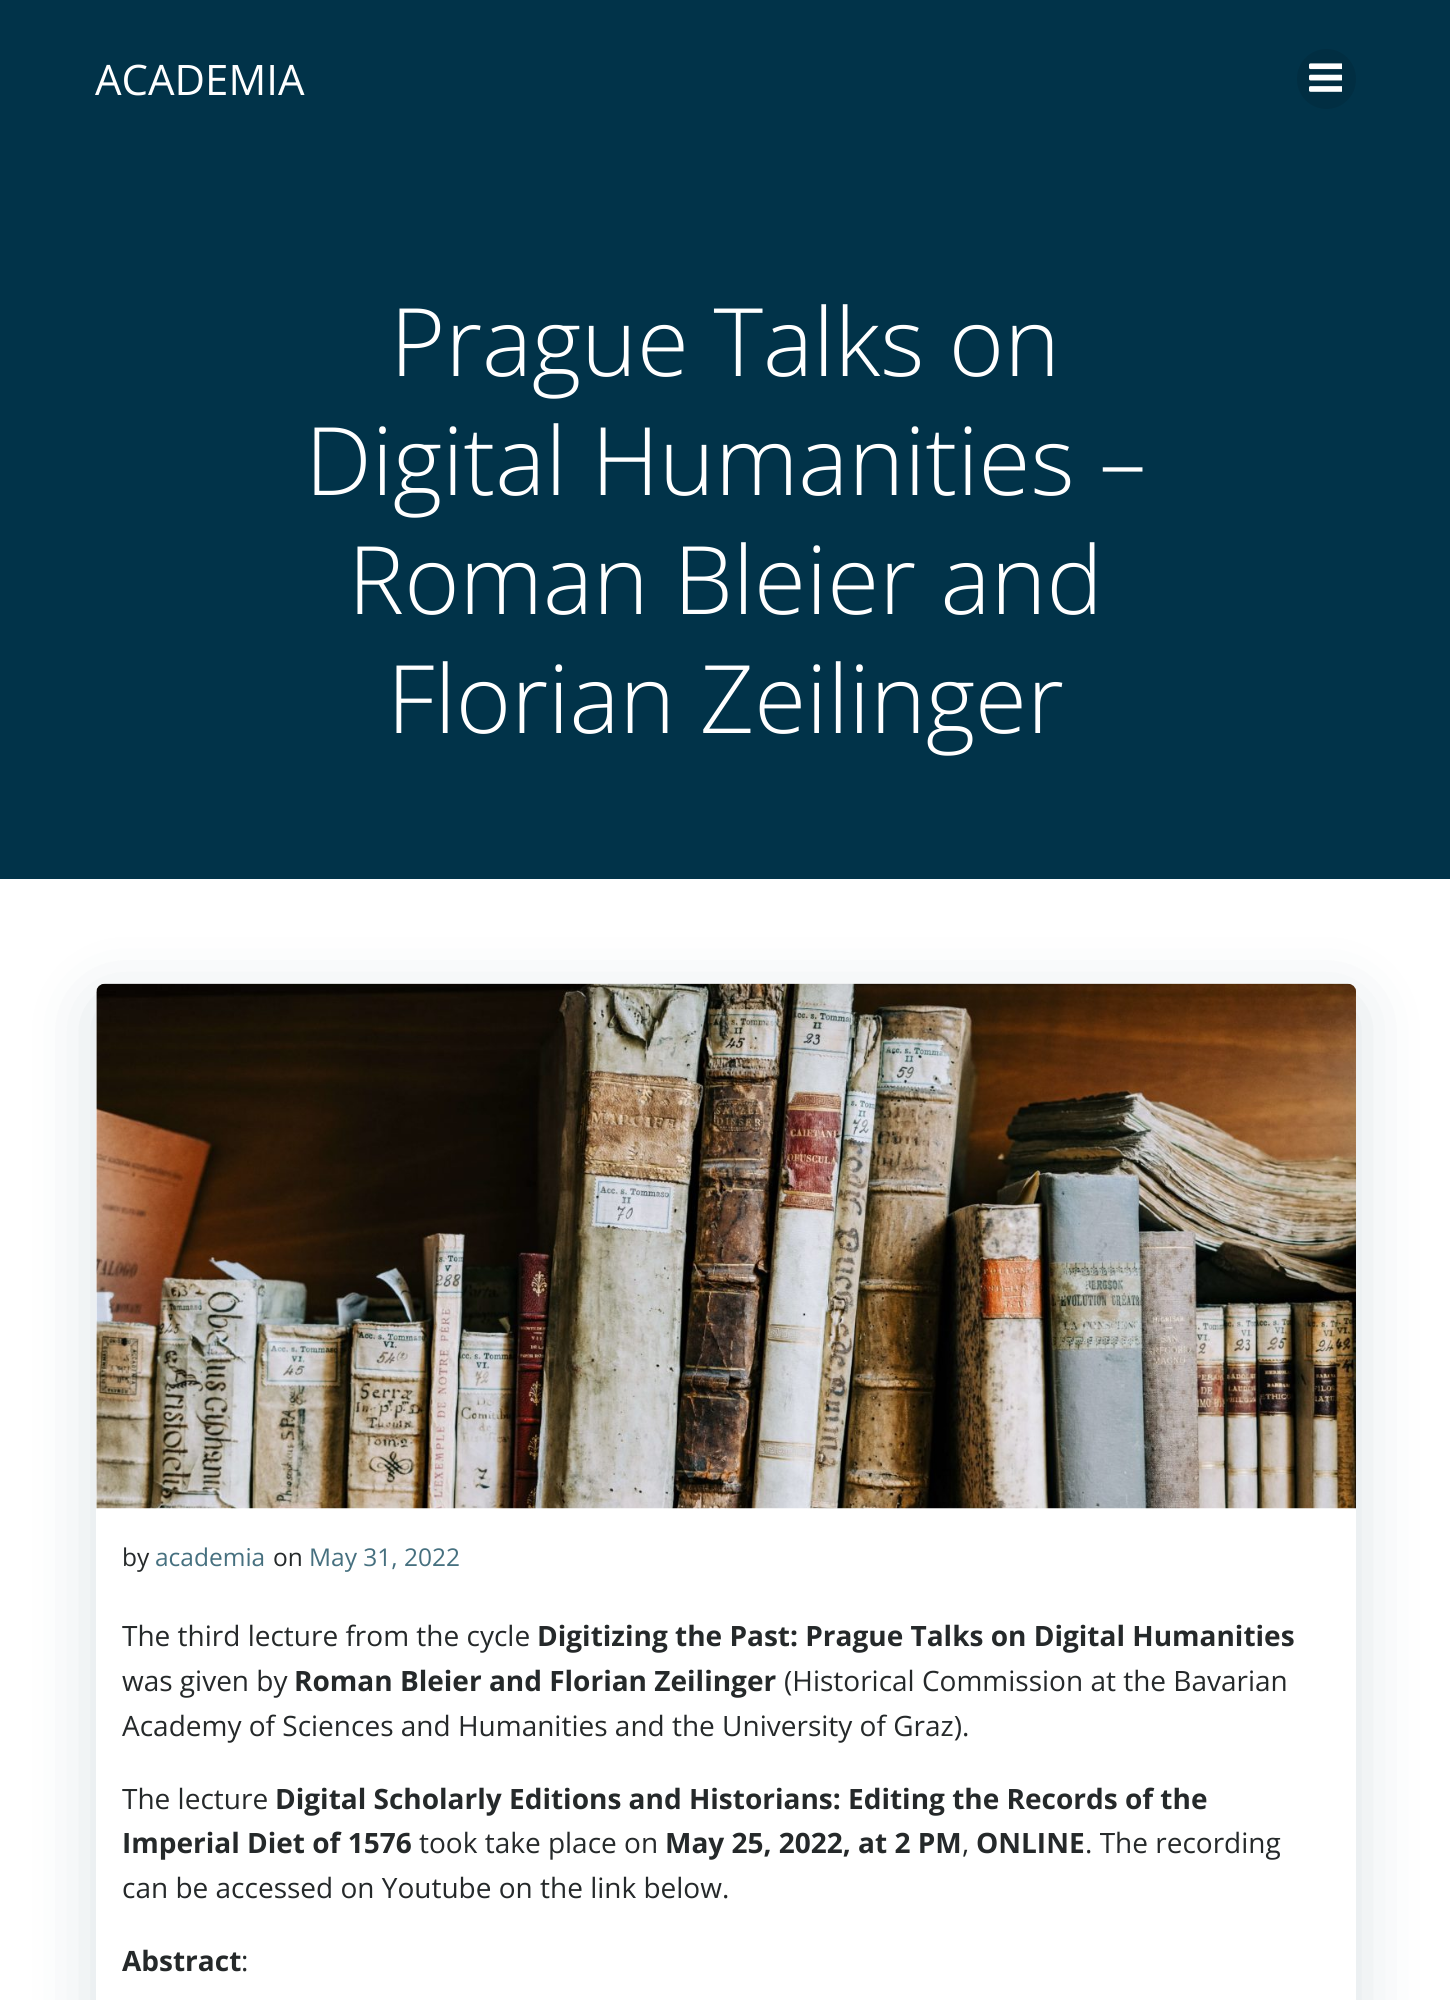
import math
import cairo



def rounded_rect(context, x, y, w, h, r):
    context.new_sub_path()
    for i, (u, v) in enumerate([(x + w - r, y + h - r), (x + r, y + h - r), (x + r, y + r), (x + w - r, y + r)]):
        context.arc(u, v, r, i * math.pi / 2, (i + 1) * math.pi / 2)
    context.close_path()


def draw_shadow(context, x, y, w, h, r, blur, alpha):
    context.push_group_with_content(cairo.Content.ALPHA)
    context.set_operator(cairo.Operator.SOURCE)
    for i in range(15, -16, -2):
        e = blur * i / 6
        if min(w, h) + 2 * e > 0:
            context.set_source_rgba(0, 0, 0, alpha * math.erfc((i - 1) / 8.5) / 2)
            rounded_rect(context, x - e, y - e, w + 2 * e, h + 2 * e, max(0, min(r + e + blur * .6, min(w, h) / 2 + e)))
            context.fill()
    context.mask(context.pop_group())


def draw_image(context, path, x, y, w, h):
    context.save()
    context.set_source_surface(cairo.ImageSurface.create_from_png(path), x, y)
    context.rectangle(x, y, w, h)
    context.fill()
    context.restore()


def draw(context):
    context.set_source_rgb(1, 1, 1)
    context.paint()
    context.set_source_rgb(1 / 255, 51 / 255, 73 / 255)
    context.rectangle(0, 0, 1450, 879)
    context.fill()
    context.set_source_rgb(1 / 255, 46 / 255, 66 / 255)
    rounded_rect(context, 1297, 49, 59, 60, 29.5)
    context.fill()
    draw_image(context, "images/1.png", 1309, 63, 33, 29)
    context.set_source_rgb(1 / 255, 51 / 255, 74 / 255)
    draw_shadow(context, 96, 1001, 1260, 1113, 9, 35, 0.15)
    context.set_source_rgb(1, 1, 1)
    rounded_rect(context, 96, 984, 1260, 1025, 9)
    context.fill()
    draw_image(context, "images/2.png", 96, 983, 1260, 526)
    context.select_font_face("Open Sans")
    context.set_font_size(42)
    context.move_to(95, 95)
    context.show_text("ACADEMIA")
    context.select_font_face("Open Sans Light")
    context.set_font_size(94.5)
    context.move_to(390, 376)
    context.show_text("Prague Talks on")
    context.move_to(305, 495)
    context.show_text("Digital Humanities –")
    context.move_to(348, 614)
    context.show_text("Roman Bleier and")
    context.move_to(387, 733)
    context.show_text("Florian Zeilinger")
    context.select_font_face("Open Sans")
    context.set_font_size(24.5)
    context.set_source_rgb(37 / 255, 41 / 255, 42 / 255)
    context.move_to(122, 1566)
    context.show_text("by")
    context.set_source_rgb(70 / 255, 112 / 255, 127 / 255)
    context.move_to(155, 1566)
    context.show_text("academia")
    context.set_source_rgb(37 / 255, 41 / 255, 42 / 255)
    context.move_to(273, 1566)
    context.show_text("on")
    context.set_source_rgb(70 / 255, 112 / 255, 127 / 255)
    context.move_to(309, 1566)
    context.show_text("May 31, 2022")
    context.set_font_size(28)
    context.set_source_rgb(37 / 255, 41 / 255, 42 / 255)
    context.move_to(122, 1646)
    context.show_text("The third lecture from the cycle")
    context.select_font_face("Open Sans", cairo.FontSlant.NORMAL, cairo.FontWeight.BOLD)
    context.move_to(537, 1646)
    context.show_text("Digitizing the Past: Prague Talks on Digital Humanities")
    context.select_font_face("Open Sans")
    context.move_to(122, 1691)
    context.show_text("was given by")
    context.select_font_face("Open Sans", cairo.FontSlant.NORMAL, cairo.FontWeight.BOLD)
    context.move_to(294, 1691)
    context.show_text("Roman Bleier and Florian Zeilinger")
    context.select_font_face("Open Sans")
    context.move_to(784, 1691)
    context.show_text("(Historical Commission at the Bavarian")
    context.move_to(122, 1736)
    context.show_text("Academy of Sciences and Humanities and the University of Graz).")
    context.move_to(122, 1809)
    context.show_text("The lecture")
    context.select_font_face("Open Sans", cairo.FontSlant.NORMAL, cairo.FontWeight.BOLD)
    context.move_to(275, 1809)
    context.show_text("Digital Scholarly Editions and Historians: Editing the Records of the")
    context.move_to(122, 1853)
    context.show_text("Imperial Diet of 1576")
    context.select_font_face("Open Sans")
    context.move_to(419, 1853)
    context.show_text("took take place on")
    context.select_font_face("Open Sans", cairo.FontSlant.NORMAL, cairo.FontWeight.BOLD)
    context.move_to(665, 1853)
    context.show_text("May 25, 2022, at 2 PM")
    context.select_font_face("Open Sans")
    context.move_to(962, 1853)
    context.show_text(",")
    context.select_font_face("Open Sans", cairo.FontSlant.NORMAL, cairo.FontWeight.BOLD)
    context.move_to(976, 1853)
    context.show_text("ONLINE")
    context.select_font_face("Open Sans")
    context.move_to(1085, 1853)
    context.show_text(". The recording")
    context.move_to(122, 1898)
    context.show_text("can be accessed on Youtube on the link below.")
    context.select_font_face("Open Sans", cairo.FontSlant.NORMAL, cairo.FontWeight.BOLD)
    context.move_to(122, 1971)
    context.show_text("Abstract")
    context.select_font_face("Open Sans")
    context.move_to(241, 1971)
    context.show_text(":")


surface = cairo.ImageSurface(cairo.Format.RGB24, 1450, 2000)
context = cairo.Context(surface)
options = cairo.FontOptions()
options.set_hint_metrics(cairo.HintMetrics.OFF)
options.set_hint_style(cairo.HintStyle.NONE)
context.set_font_options(options)
context.set_miter_limit(4)
draw(context)
surface.write_to_png("out.png")
